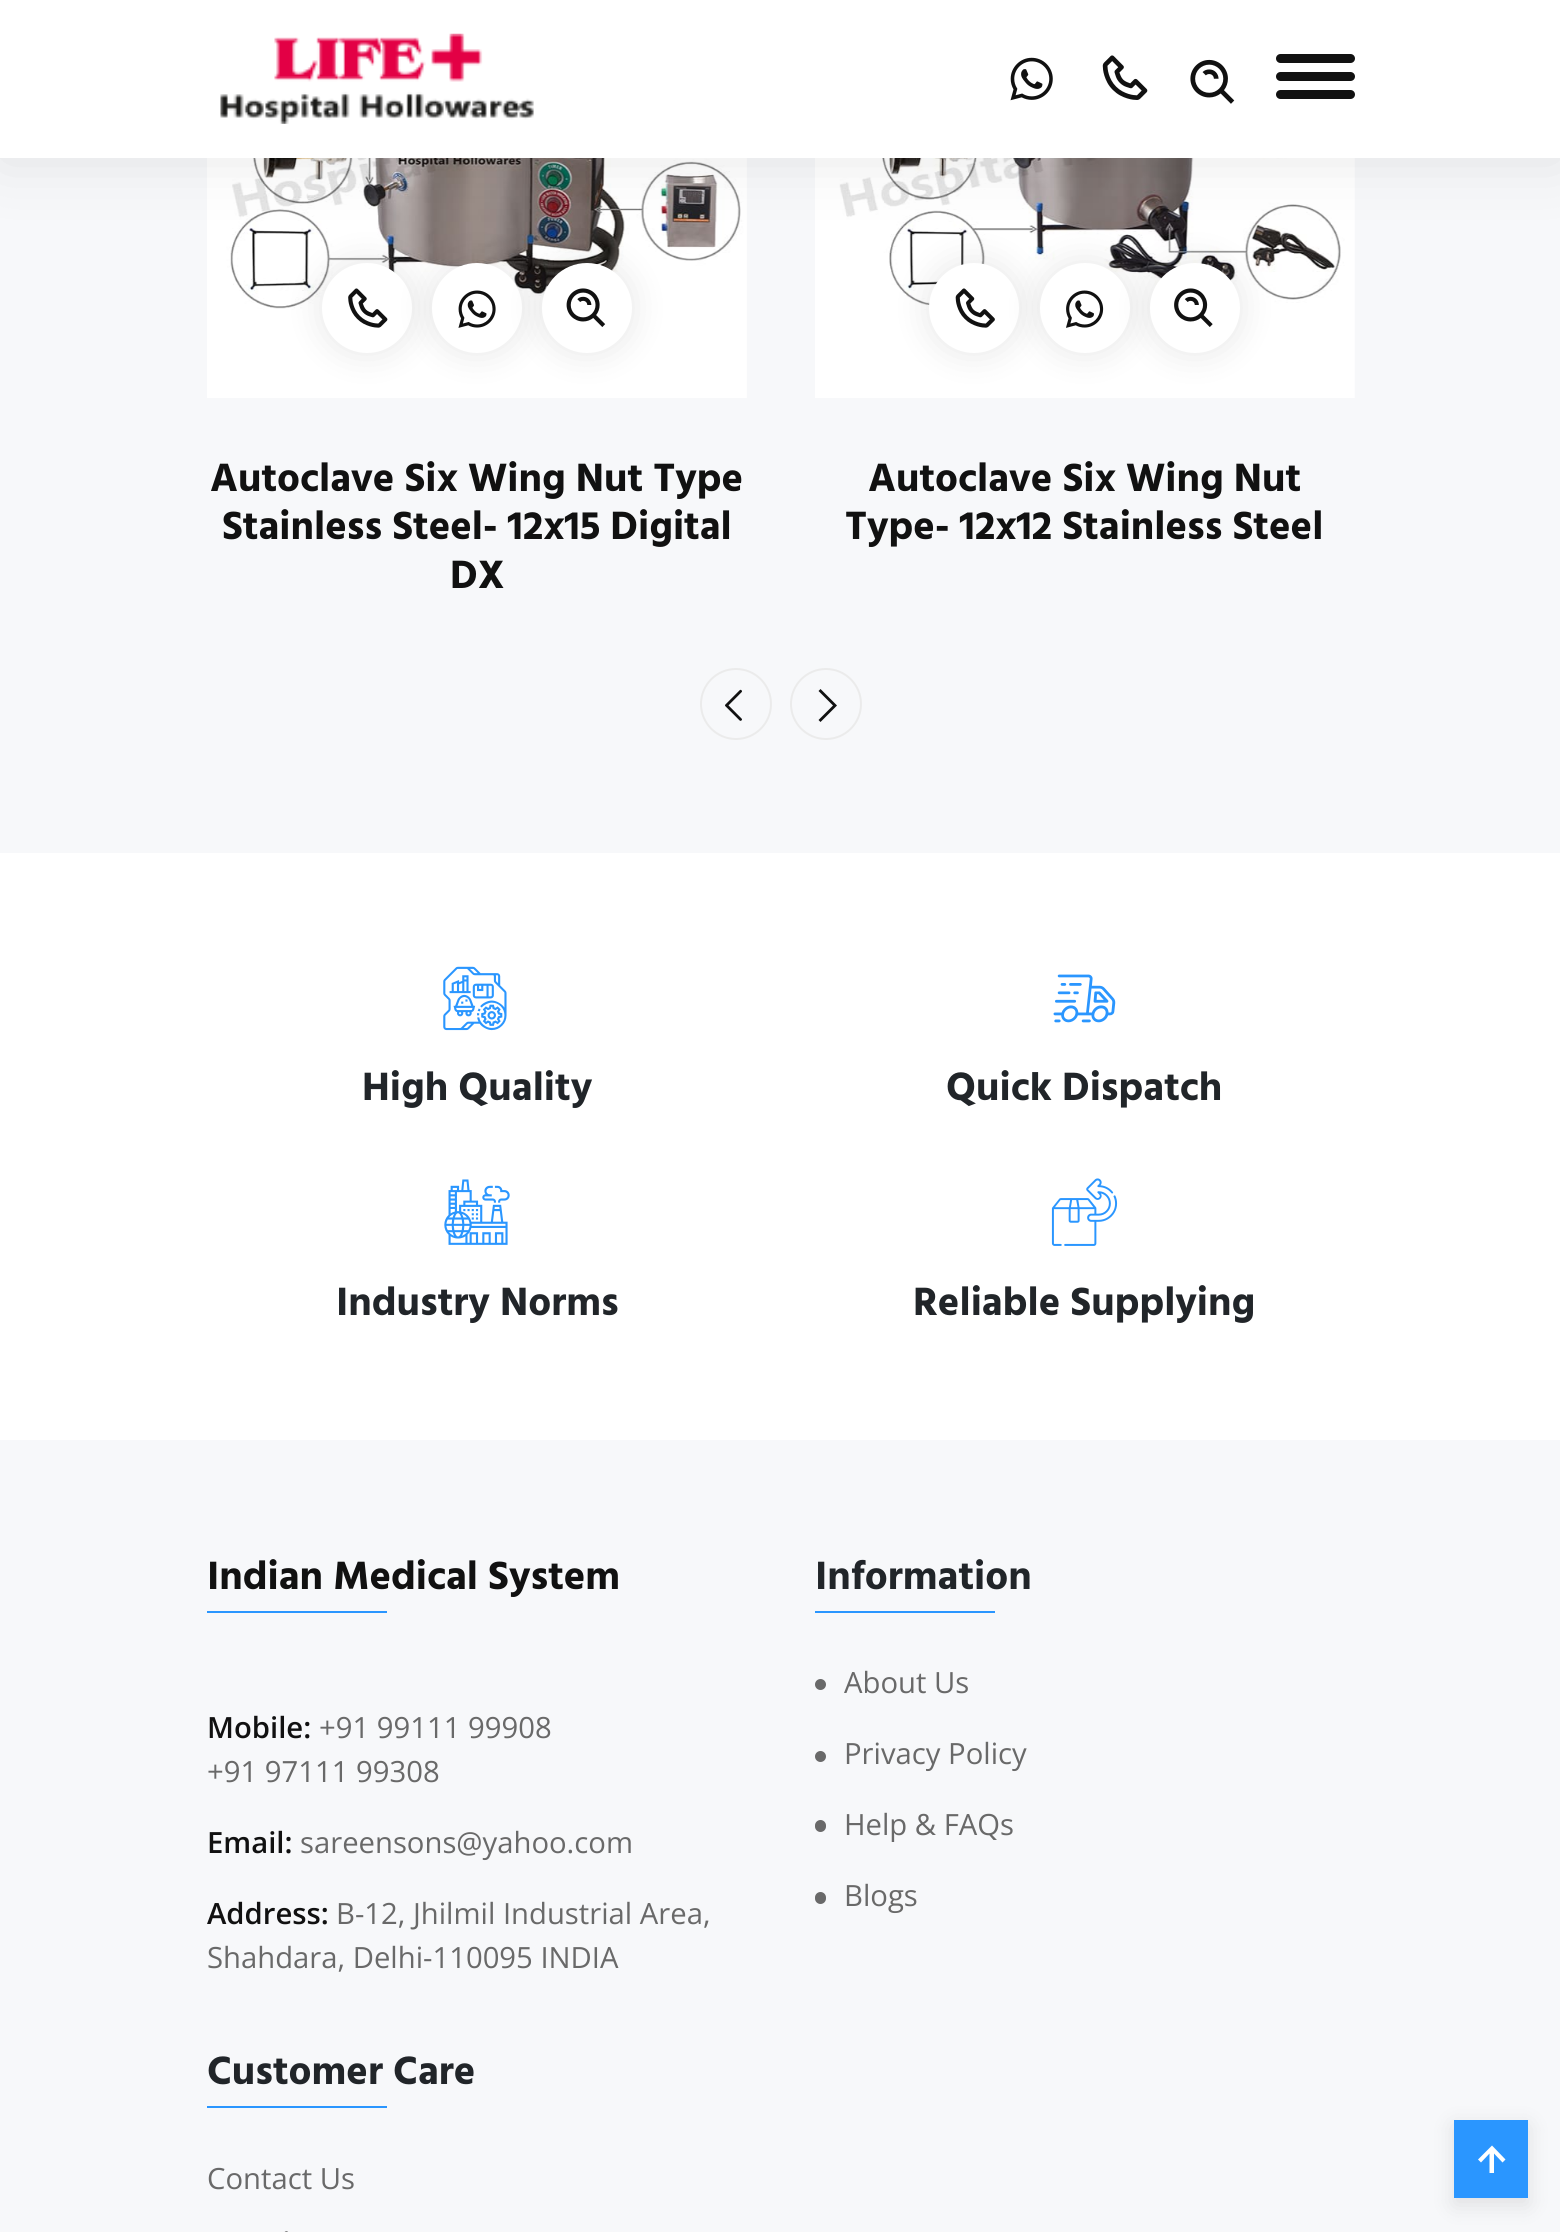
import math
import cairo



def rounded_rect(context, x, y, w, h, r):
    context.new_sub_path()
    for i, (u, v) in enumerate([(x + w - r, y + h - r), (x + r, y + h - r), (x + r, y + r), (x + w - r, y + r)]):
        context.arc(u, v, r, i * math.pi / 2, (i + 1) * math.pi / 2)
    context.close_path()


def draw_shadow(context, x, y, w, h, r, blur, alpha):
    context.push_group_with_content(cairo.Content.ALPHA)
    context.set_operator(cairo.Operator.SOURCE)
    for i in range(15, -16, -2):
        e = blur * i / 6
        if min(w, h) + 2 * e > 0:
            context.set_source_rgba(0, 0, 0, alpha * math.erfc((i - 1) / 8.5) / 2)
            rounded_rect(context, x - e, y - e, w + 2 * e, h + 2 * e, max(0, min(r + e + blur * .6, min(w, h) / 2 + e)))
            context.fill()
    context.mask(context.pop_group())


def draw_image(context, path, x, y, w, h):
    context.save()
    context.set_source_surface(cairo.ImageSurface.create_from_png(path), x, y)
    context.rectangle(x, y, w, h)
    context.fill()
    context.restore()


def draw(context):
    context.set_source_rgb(247 / 255, 248 / 255, 250 / 255)
    context.paint()
    draw_image(context, "images/5.png", 207, 158, 540, 240)
    draw_image(context, "images/9.png", 815, 158, 540, 240)
    context.set_source_rgb(0, 0, 0)
    draw_shadow(context, 0, 5, 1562, 157, 0, 31.5, 0.09)
    context.set_source_rgb(1, 1, 1)
    context.rectangle(0, 0, 1560, 158)
    context.fill()
    draw_image(context, "images/1.png", 220, 33, 314, 91)
    draw_image(context, "images/2.png", 1010, 57, 43, 44)
    draw_image(context, "images/3.png", 1102, 55, 46, 45)
    draw_image(context, "images/4.png", 1190, 59, 45, 45)
    context.set_source_rgb(17 / 255, 17 / 255, 17 / 255)
    rounded_rect(context, 1276, 54, 79, 9, 4.5)
    context.fill()
    rounded_rect(context, 1276, 72, 79, 9, 4.5)
    context.fill()
    rounded_rect(context, 1276, 90, 79, 9, 4.5)
    context.fill()
    context.set_source_rgb(0, 0, 0)
    draw_shadow(context, 322, 263, 90, 90, 45, 17, 0.1)
    context.set_source_rgb(1, 1, 1)
    context.arc(367, 308, 45, 0, 2 * math.pi)
    context.fill()
    draw_image(context, "images/6.png", 348, 288, 40, 40)
    context.set_source_rgb(0, 0, 0)
    draw_shadow(context, 432, 263, 90, 90, 45, 17, 0.1)
    context.set_source_rgb(1, 1, 1)
    context.arc(477, 308, 45, 0, 2 * math.pi)
    context.fill()
    draw_image(context, "images/7.png", 458, 290, 38, 38)
    context.set_source_rgb(0, 0, 0)
    draw_shadow(context, 542, 263, 90, 90, 45, 17, 0.1)
    context.set_source_rgb(1, 1, 1)
    context.arc(587, 308, 45, 0, 2 * math.pi)
    context.fill()
    draw_image(context, "images/8.png", 566, 288, 40, 39)
    context.set_source_rgb(0, 0, 0)
    draw_shadow(context, 929, 263, 90, 90, 45, 17, 0.1)
    context.set_source_rgb(1, 1, 1)
    context.arc(974, 308, 45, 0, 2 * math.pi)
    context.fill()
    draw_image(context, "images/10.png", 955, 288, 40, 40)
    context.set_source_rgb(0, 0, 0)
    draw_shadow(context, 1040, 263, 90, 90, 45, 17, 0.1)
    context.set_source_rgb(1, 1, 1)
    context.arc(1085, 308, 45, 0, 2 * math.pi)
    context.fill()
    draw_image(context, "images/11.png", 1066, 290, 38, 38)
    context.set_source_rgb(0, 0, 0)
    draw_shadow(context, 1150, 263, 90, 90, 45, 17, 0.1)
    context.set_source_rgb(1, 1, 1)
    context.arc(1195, 308, 45, 0, 2 * math.pi)
    context.fill()
    draw_image(context, "images/12.png", 1174, 288, 39, 39)
    context.arc(736, 704, 35, 0, 2 * math.pi)
    context.set_source_rgb(235 / 255, 235 / 255, 235 / 255)
    context.stroke()
    draw_image(context, "images/13.png", 725, 689, 17, 32)
    context.arc(826, 704, 35, 0, 2 * math.pi)
    context.stroke()
    context.set_source_rgb(17 / 255, 17 / 255, 17 / 255)
    context.new_path()
    context.move_to(818.5, 691)
    context.line_to(820.5, 689)
    context.line_to(837, 705.5)
    context.line_to(820.5, 722)
    context.line_to(818.5, 720)
    context.line_to(833, 705.5)
    context.close_path()
    context.fill()
    context.set_source_rgb(1, 1, 1)
    context.rectangle(0, 853, 1560, 587)
    context.fill()
    draw_image(context, "images/14.png", 443, 966, 64, 65)
    draw_image(context, "images/15.png", 1053, 974, 63, 49)
    draw_image(context, "images/16.png", 444, 1179, 66, 66)
    draw_image(context, "images/17.png", 1051, 1178, 67, 68)
    context.set_source_rgb(42 / 255, 150 / 255, 1)
    context.rectangle(207, 1611, 180, 2)
    context.fill()
    context.rectangle(815, 1611, 180, 2)
    context.fill()
    context.set_source_rgb(105 / 255, 105 / 255, 105 / 255)
    context.arc(820.5, 1684.5, 5.5, 0, 2 * math.pi)
    context.fill()
    context.arc(820.5, 1756.5, 5.5, 0, 2 * math.pi)
    context.fill()
    rounded_rect(context, 815, 1820, 11, 12, 5.5)
    context.fill()
    rounded_rect(context, 815, 1892, 11, 12, 5.5)
    context.fill()
    context.set_source_rgb(42 / 255, 150 / 255, 1)
    context.rectangle(207, 2106, 180, 2)
    context.fill()
    draw_image(context, "images/18.png", 284, 2231, 4, 1)
    context.set_source_rgb(0, 0, 0)
    draw_shadow(context, 1454, 2126, 74, 79, 0, 11, 0.1)
    context.set_source_rgb(42 / 255, 150 / 255, 1)
    context.rectangle(1454, 2120, 74, 78)
    context.fill()
    context.set_source_rgb(1, 1, 1)
    context.new_path()
    context.move_to(1489.5, 2153.5)
    context.line_to(1489.5, 2173)
    context.line_to(1494, 2173)
    context.line_to(1494, 2153.5)
    context.line_to(1502.5, 2162.5)
    context.line_to(1505.5, 2159.5)
    context.line_to(1492, 2145.5)
    context.line_to(1478, 2159.5)
    context.line_to(1481, 2162.5)
    context.close_path()
    context.fill()
    context.select_font_face("Hind Siliguri", cairo.FontSlant.NORMAL, cairo.FontWeight.BOLD)
    context.set_font_size(40.5)
    context.set_source_rgb(17 / 255, 17 / 255, 17 / 255)
    context.move_to(210, 491)
    context.show_text("Autoclave Six Wing Nut Type")
    context.move_to(222, 539)
    context.show_text("Stainless Steel- 12x15 Digital")
    context.move_to(450, 588)
    context.show_text("DX")
    context.move_to(868, 491)
    context.show_text("Autoclave Six Wing Nut")
    context.move_to(845, 539)
    context.show_text("Type- 12x12 Stainless Steel")
    context.set_source_rgb(33 / 255, 37 / 255, 41 / 255)
    context.move_to(362, 1100)
    context.show_text("High Quality")
    context.move_to(946, 1100)
    context.show_text("Quick Dispatch")
    context.move_to(336, 1315)
    context.show_text("Industry Norms")
    context.move_to(913, 1315)
    context.show_text("Reliable Supplying")
    context.set_source_rgb(17 / 255, 17 / 255, 17 / 255)
    context.move_to(207, 1589)
    context.show_text("Indian Medical System")
    context.select_font_face("Open Sans SemiBold")
    context.set_font_size(29.25)
    context.move_to(207, 1738)
    context.show_text("Mobile:")
    context.select_font_face("Open Sans")
    context.set_source_rgb(105 / 255, 105 / 255, 105 / 255)
    context.move_to(319, 1738)
    context.show_text("+91 99111 99908")
    context.move_to(207, 1782)
    context.show_text("+91 97111 99308")
    context.select_font_face("Open Sans SemiBold")
    context.set_source_rgb(17 / 255, 17 / 255, 17 / 255)
    context.move_to(207, 1853)
    context.show_text("Email:")
    context.select_font_face("Open Sans")
    context.set_source_rgb(105 / 255, 105 / 255, 105 / 255)
    context.move_to(300, 1853)
    context.show_text("sareensons@yahoo.com")
    context.select_font_face("Open Sans SemiBold")
    context.set_source_rgb(17 / 255, 17 / 255, 17 / 255)
    context.move_to(207, 1924)
    context.show_text("Address:")
    context.select_font_face("Open Sans")
    context.set_source_rgb(105 / 255, 105 / 255, 105 / 255)
    context.move_to(336, 1924)
    context.show_text("B-12, Jhilmil Industrial Area,")
    context.move_to(207, 1968)
    context.show_text("Shahdara, Delhi-110095 INDIA")
    context.select_font_face("Hind Siliguri", cairo.FontSlant.NORMAL, cairo.FontWeight.BOLD)
    context.set_font_size(40.5)
    context.set_source_rgb(33 / 255, 37 / 255, 41 / 255)
    context.move_to(815, 1589)
    context.show_text("Information")
    context.select_font_face("Open Sans")
    context.set_font_size(29.25)
    context.set_source_rgb(105 / 255, 105 / 255, 105 / 255)
    context.move_to(844, 1693)
    context.show_text("About Us")
    context.move_to(844, 1764)
    context.show_text("Privacy Policy")
    context.move_to(844, 1835)
    context.show_text("Help & FAQs")
    context.move_to(844, 1906)
    context.show_text("Blogs")
    context.select_font_face("Hind Siliguri", cairo.FontSlant.NORMAL, cairo.FontWeight.BOLD)
    context.set_font_size(40.5)
    context.set_source_rgb(33 / 255, 37 / 255, 41 / 255)
    context.move_to(207, 2084)
    context.show_text("Customer Care")
    context.select_font_face("Open Sans")
    context.set_font_size(29.25)
    context.set_source_rgb(105 / 255, 105 / 255, 105 / 255)
    context.move_to(207, 2189)
    context.show_text("Contact Us")


surface = cairo.ImageSurface(cairo.Format.RGB24, 1560, 2232)
context = cairo.Context(surface)
options = cairo.FontOptions()
options.set_hint_metrics(cairo.HintMetrics.OFF)
options.set_hint_style(cairo.HintStyle.NONE)
context.set_font_options(options)
context.set_miter_limit(4)
draw(context)
surface.write_to_png("out.png")
